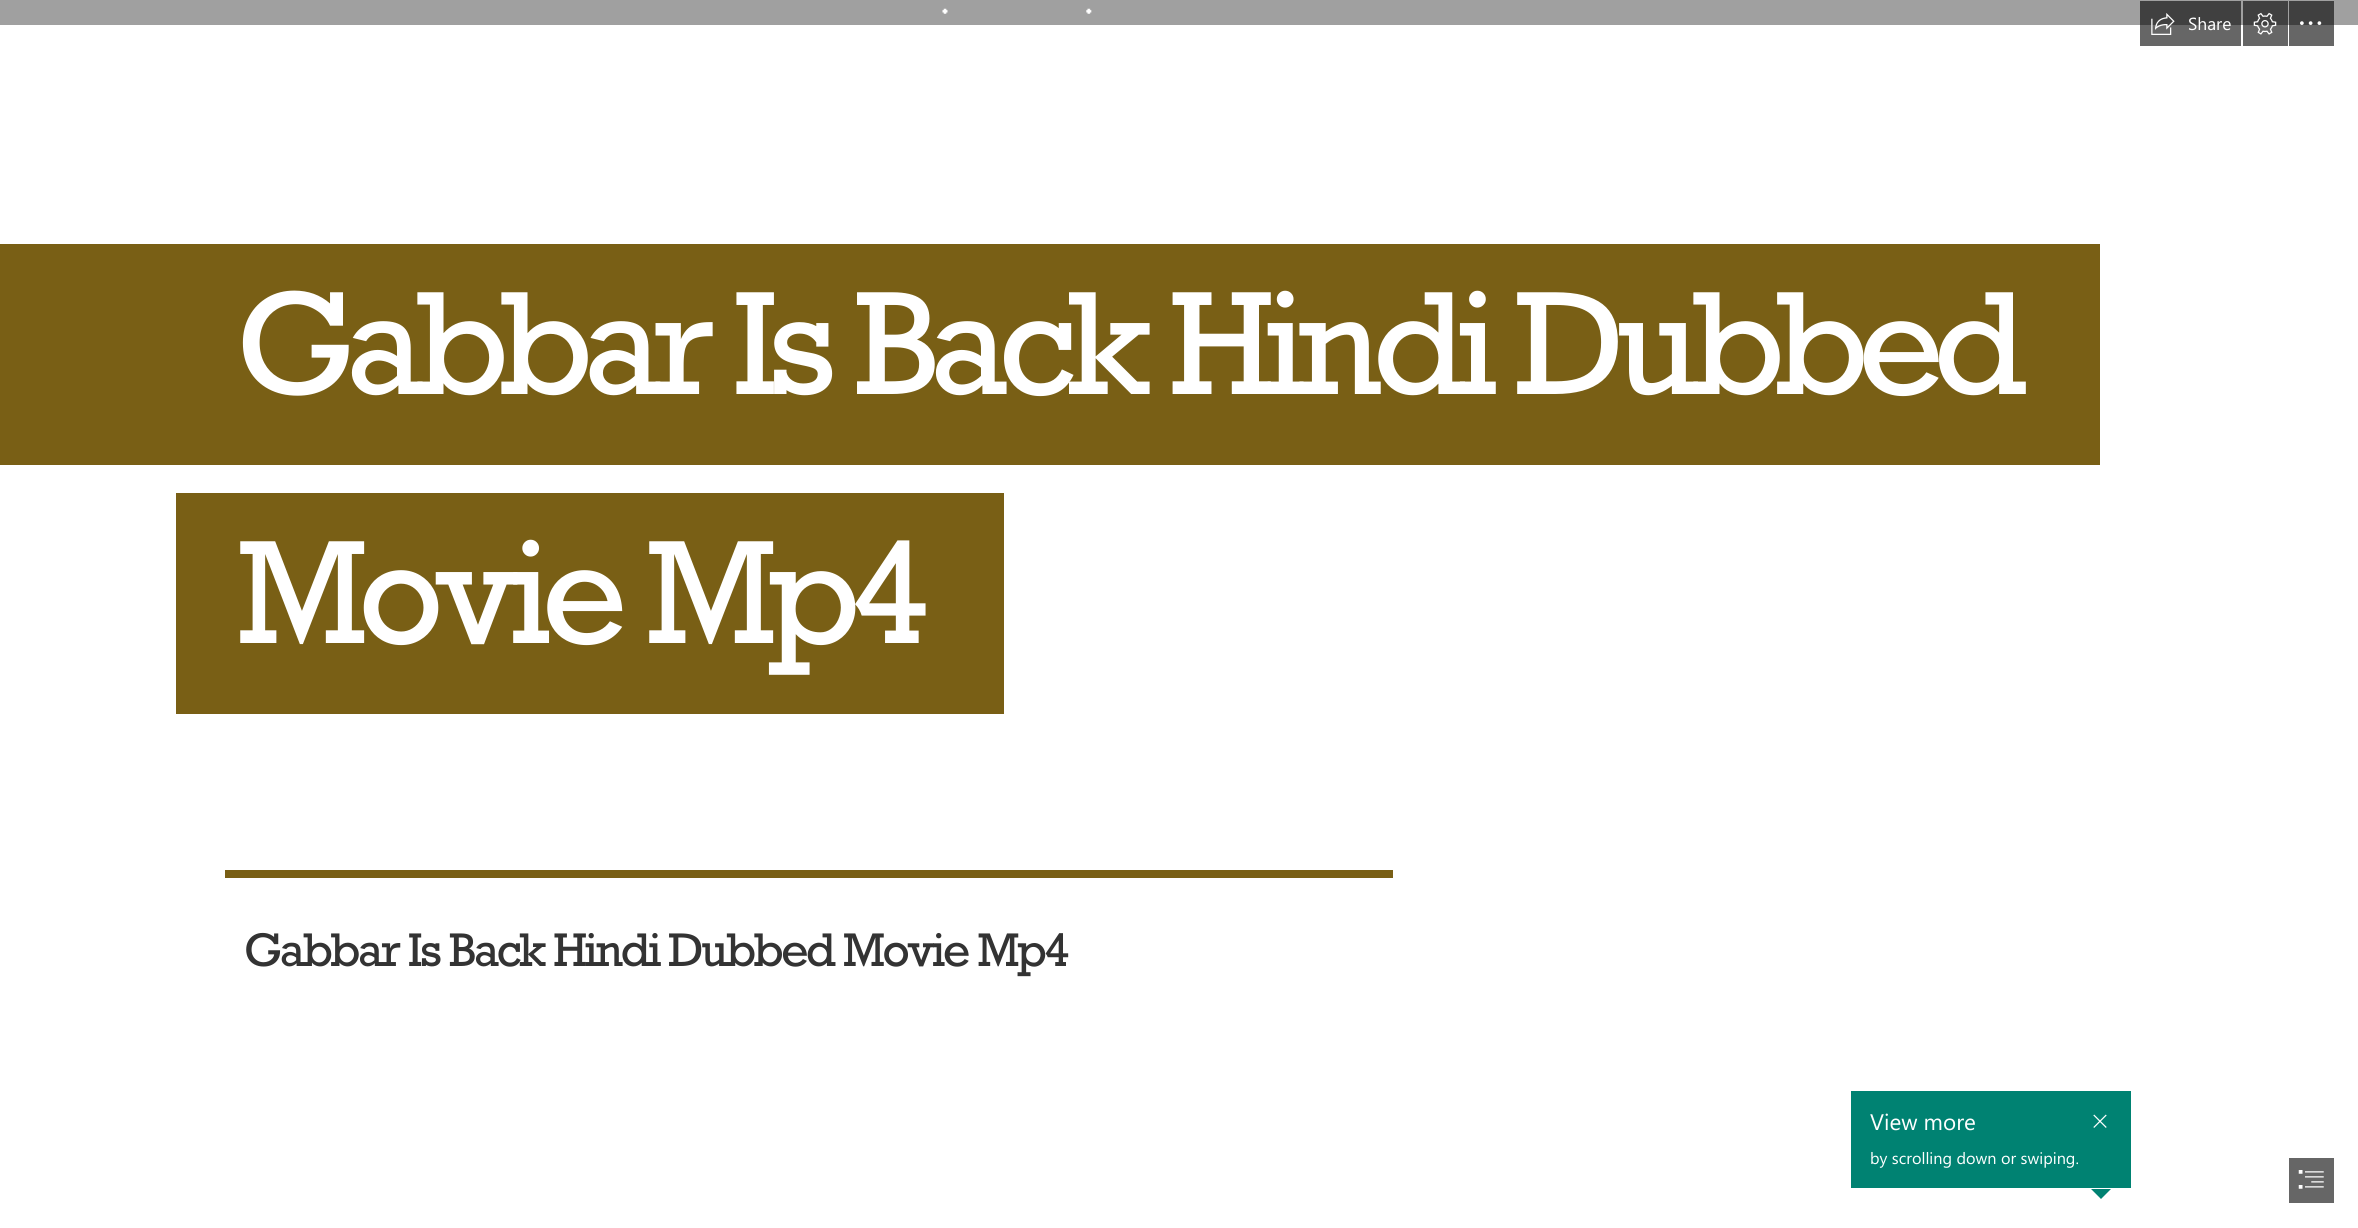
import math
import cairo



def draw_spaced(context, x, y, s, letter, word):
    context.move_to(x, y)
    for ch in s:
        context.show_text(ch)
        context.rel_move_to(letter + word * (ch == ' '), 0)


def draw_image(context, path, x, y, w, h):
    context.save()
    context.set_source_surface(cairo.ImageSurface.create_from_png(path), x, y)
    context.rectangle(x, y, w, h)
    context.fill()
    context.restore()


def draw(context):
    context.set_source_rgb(1, 1, 1)
    context.paint()
    context.set_source_rgb(160 / 255, 160 / 255, 160 / 255)
    context.rectangle(0, 0, 2358, 25)
    context.fill()
    context.set_source_rgb(64 / 255, 64 / 255, 64 / 255)
    context.rectangle(2140, 1, 101, 24)
    context.fill()
    context.set_source_rgb(102 / 255, 102 / 255, 102 / 255)
    context.rectangle(2140, 25, 101, 21)
    context.fill()
    draw_image(context, "images/1.png", 2151, 13, 24, 22)
    context.set_source_rgb(64 / 255, 64 / 255, 64 / 255)
    context.rectangle(2243, 1, 45, 24)
    context.fill()
    context.set_source_rgb(102 / 255, 102 / 255, 102 / 255)
    context.rectangle(2243, 25, 45, 21)
    context.fill()
    draw_image(context, "images/2.png", 2253, 12, 24, 23)
    context.set_source_rgb(64 / 255, 64 / 255, 64 / 255)
    context.rectangle(2289, 1, 45, 24)
    context.fill()
    draw_image(context, "images/3.png", 2300, 21, 22, 4)
    draw_image(context, "images/4.png", 942, 8, 150, 6)
    context.set_source_rgb(102 / 255, 102 / 255, 102 / 255)
    context.rectangle(2289, 25, 45, 21)
    context.fill()
    context.set_source_rgb(121 / 255, 95 / 255, 21 / 255)
    context.rectangle(0, 244, 2100, 221)
    context.fill()
    context.rectangle(176, 493, 828, 221)
    context.fill()
    context.rectangle(225, 870, 1168, 8)
    context.fill()
    context.set_source_rgb(0, 130 / 255, 114 / 255)
    context.rectangle(1851, 1091, 280, 97)
    context.fill()
    draw_image(context, "images/5.png", 2093, 1114, 14, 14)
    context.new_path()
    context.move_to(2091, 1189)
    context.line_to(2111, 1189)
    context.line_to(2101, 1199)
    context.close_path()
    context.fill()
    context.set_source_rgb(102 / 255, 102 / 255, 102 / 255)
    context.rectangle(2289, 1158, 45, 45)
    context.fill()
    draw_image(context, "images/6.png", 2298, 1170, 26, 19)
    context.select_font_face("Segoe UI")
    context.set_font_size(17.5)
    context.set_source_rgb(1, 1, 1)
    context.move_to(2188, 30)
    context.show_text("Share")
    context.select_font_face("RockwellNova")
    context.set_font_size(138.25)
    draw_spaced(context, 236, 394, "Gabbar Is Back Hindi Dubbed", -10.35, 0)
    draw_spaced(context, 236, 643, "Movie Mp4", -10, 0)
    context.set_font_size(44.25)
    context.set_source_rgb(51 / 255, 51 / 255, 51 / 255)
    draw_spaced(context, 244, 966, "Gabbar Is Back Hindi Dubbed Movie Mp4", -2.6, 0)
    context.select_font_face("Segoe UI")
    context.set_font_size(22.5)
    context.set_source_rgb(1, 1, 1)
    context.move_to(1870, 1130)
    context.show_text("View more")
    context.set_font_size(16.25)
    context.move_to(1870, 1164)
    context.show_text("by scrolling down or swiping.")


surface = cairo.ImageSurface(cairo.Format.RGB24, 2358, 1228)
context = cairo.Context(surface)
options = cairo.FontOptions()
options.set_hint_metrics(cairo.HintMetrics.OFF)
options.set_hint_style(cairo.HintStyle.NONE)
context.set_font_options(options)
context.set_miter_limit(4)
draw(context)
surface.write_to_png("out.png")
